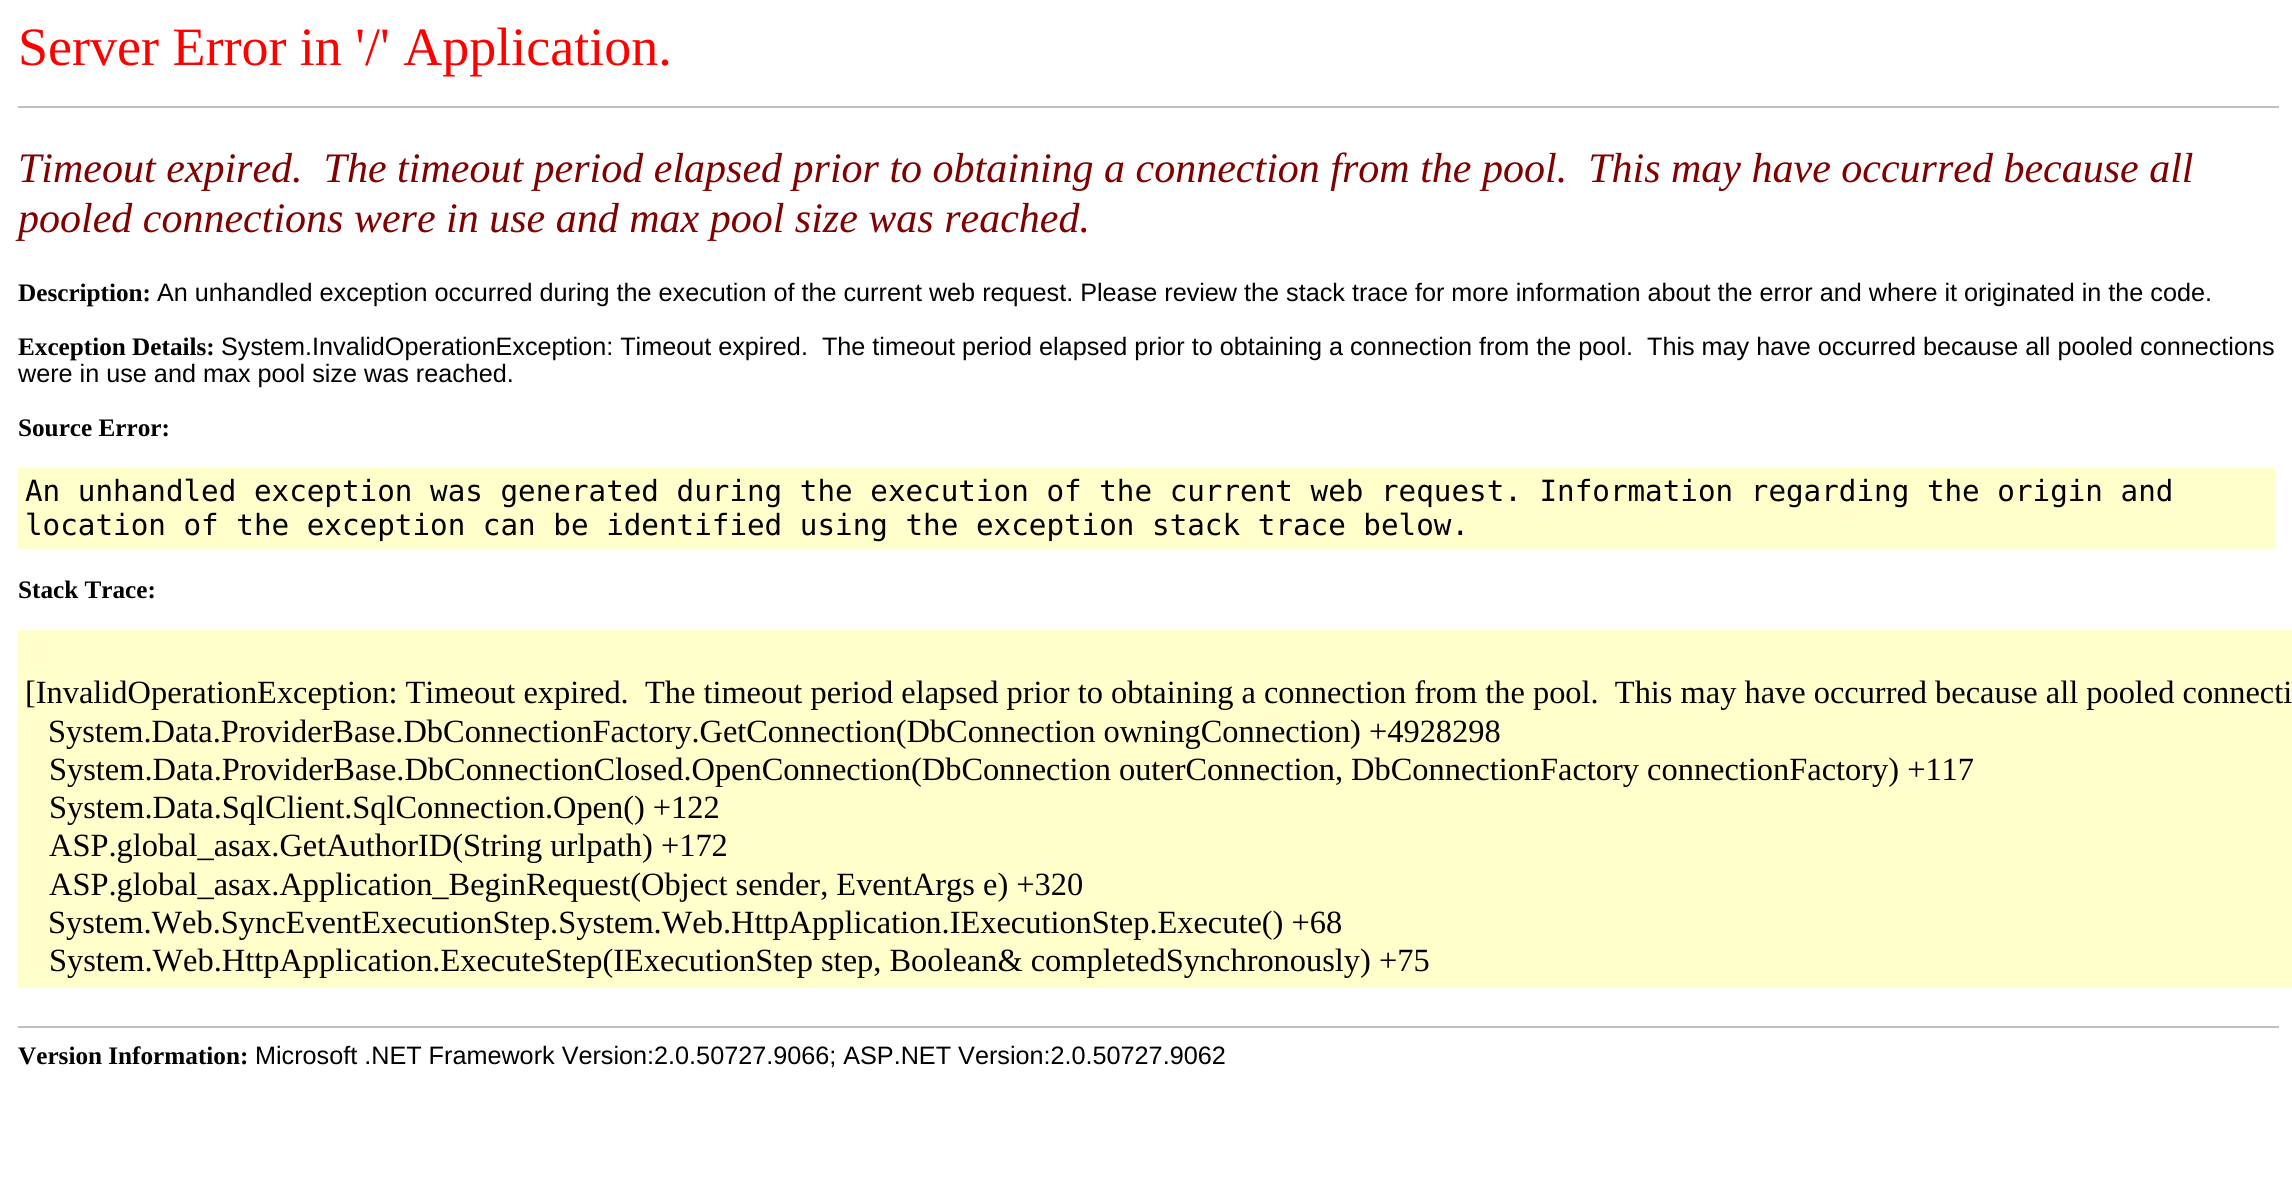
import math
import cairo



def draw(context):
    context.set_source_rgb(1, 1, 1)
    context.paint()
    context.set_source_rgb(192 / 255, 192 / 255, 192 / 255)
    context.rectangle(18, 106, 2261, 2)
    context.fill()
    context.set_source_rgb(1, 1, 204 / 255)
    context.rectangle(18, 468, 2257, 81)
    context.fill()
    context.rectangle(18, 630, 2274, 358)
    context.fill()
    context.set_source_rgb(192 / 255, 192 / 255, 192 / 255)
    context.rectangle(18, 1026, 2261, 2)
    context.fill()
    context.select_font_face("Liberation Serif")
    context.set_font_size(54)
    context.set_source_rgb(1, 0, 0)
    context.move_to(18, 65)
    context.show_text("Server Error in '/' Application.")
    context.select_font_face("Liberation Serif", cairo.FontSlant.ITALIC)
    context.set_font_size(42)
    context.set_source_rgb(128 / 255, 0, 0)
    context.move_to(18, 182)
    context.show_text("Timeout expired.  The timeout period elapsed prior to obtaining a connection from the pool.  This may have occurred because all")
    context.move_to(18, 232)
    context.show_text("pooled connections were in use and max pool size was reached.")
    context.select_font_face("Liberation Serif", cairo.FontSlant.NORMAL, cairo.FontWeight.BOLD)
    context.set_font_size(25.2)
    context.set_source_rgb(0, 0, 0)
    context.move_to(18, 301)
    context.show_text("Description:")
    context.select_font_face("Liberation Sans")
    context.move_to(157, 301)
    context.show_text("An unhandled exception occurred during the execution of the current web request. Please review the stack trace for more information about the error and where it originated in the code.")
    context.select_font_face("Liberation Serif", cairo.FontSlant.NORMAL, cairo.FontWeight.BOLD)
    context.move_to(18, 355)
    context.show_text("Exception Details:")
    context.select_font_face("Liberation Sans")
    context.move_to(221, 355)
    context.show_text("System.InvalidOperationException: Timeout expired.  The timeout period elapsed prior to obtaining a connection from the pool.  This may have occurred because all pooled connections")
    context.move_to(18, 382)
    context.show_text("were in use and max pool size was reached.")
    context.select_font_face("Liberation Serif", cairo.FontSlant.NORMAL, cairo.FontWeight.BOLD)
    context.move_to(18, 436)
    context.show_text("Source Error:")
    context.select_font_face("DejaVu Sans Mono")
    context.set_font_size(29.25)
    context.move_to(25, 501)
    context.show_text("An unhandled exception was generated during the execution of the current web request. Information regarding the origin and")
    context.move_to(25, 535)
    context.show_text("location of the exception can be identified using the exception stack trace below.")
    context.select_font_face("Liberation Serif", cairo.FontSlant.NORMAL, cairo.FontWeight.BOLD)
    context.set_font_size(25.2)
    context.move_to(18, 598)
    context.show_text("Stack Trace:")
    context.select_font_face("Liberation Serif")
    context.set_font_size(32.4)
    context.move_to(25, 703)
    context.show_text("[InvalidOperationException: Timeout expired.  The timeout period elapsed prior to obtaining a connection from the pool.  This may have occurred because all pooled connecti")
    context.move_to(48, 742)
    context.show_text("System.Data.ProviderBase.DbConnectionFactory.GetConnection(DbConnection owningConnection) +4928298")
    context.move_to(49, 780)
    context.show_text("System.Data.ProviderBase.DbConnectionClosed.OpenConnection(DbConnection outerConnection, DbConnectionFactory connectionFactory) +117")
    context.move_to(49, 818)
    context.show_text("System.Data.SqlClient.SqlConnection.Open() +122")
    context.move_to(49, 856)
    context.show_text("ASP.global_asax.GetAuthorID(String urlpath) +172")
    context.move_to(49, 895)
    context.show_text("ASP.global_asax.Application_BeginRequest(Object sender, EventArgs e) +320")
    context.move_to(48, 933)
    context.show_text("System.Web.SyncEventExecutionStep.System.Web.HttpApplication.IExecutionStep.Execute() +68")
    context.move_to(49, 971)
    context.show_text("System.Web.HttpApplication.ExecuteStep(IExecutionStep step, Boolean& completedSynchronously) +75")
    context.select_font_face("Liberation Serif", cairo.FontSlant.NORMAL, cairo.FontWeight.BOLD)
    context.set_font_size(25.2)
    context.move_to(18, 1064)
    context.show_text("Version Information:")
    context.select_font_face("Liberation Sans")
    context.move_to(255, 1064)
    context.show_text("Microsoft .NET Framework Version:2.0.50727.9066; ASP.NET Version:2.0.50727.9062")


surface = cairo.ImageSurface(cairo.Format.RGB24, 2292, 1196)
context = cairo.Context(surface)
options = cairo.FontOptions()
options.set_hint_metrics(cairo.HintMetrics.OFF)
options.set_hint_style(cairo.HintStyle.NONE)
context.set_font_options(options)
context.set_miter_limit(4)
draw(context)
surface.write_to_png("out.png")
